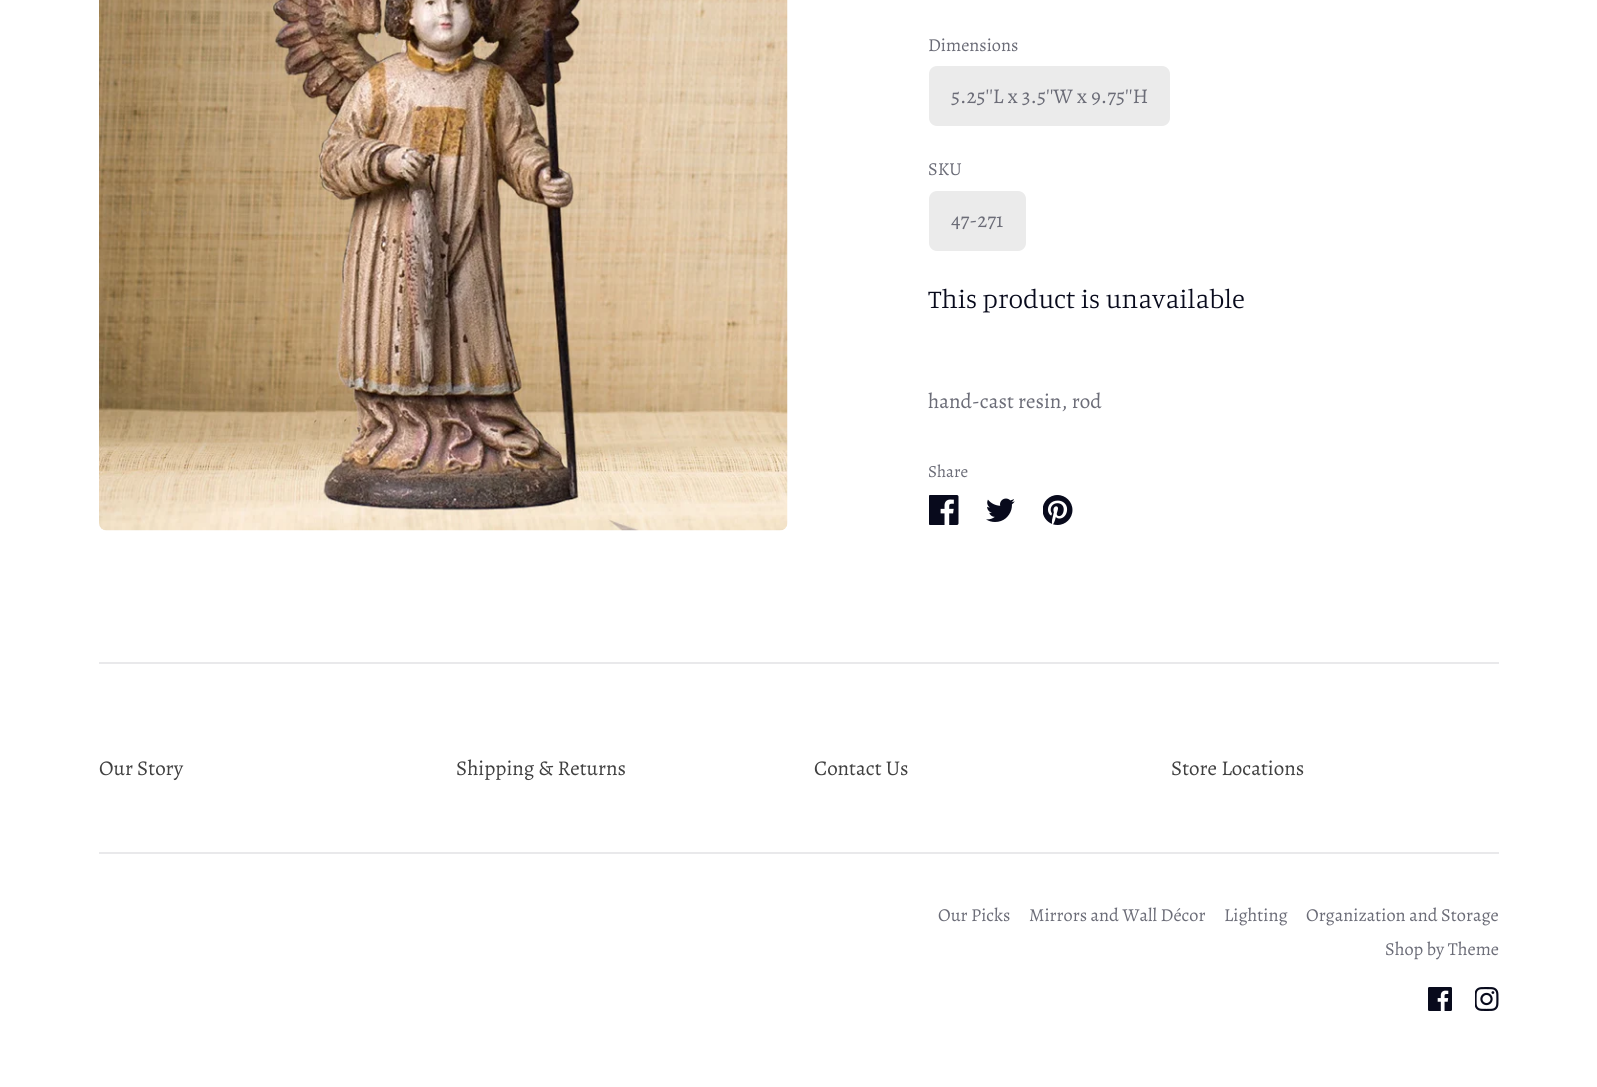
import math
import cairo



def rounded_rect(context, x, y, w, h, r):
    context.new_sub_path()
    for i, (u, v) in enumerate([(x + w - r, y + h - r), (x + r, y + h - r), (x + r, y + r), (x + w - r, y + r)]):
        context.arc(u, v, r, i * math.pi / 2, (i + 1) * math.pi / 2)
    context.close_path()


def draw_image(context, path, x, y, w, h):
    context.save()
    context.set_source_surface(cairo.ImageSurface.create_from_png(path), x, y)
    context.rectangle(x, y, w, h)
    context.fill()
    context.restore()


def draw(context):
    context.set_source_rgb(1, 1, 1)
    context.paint()
    draw_image(context, "images/1.png", 99, 0, 689, 531)
    context.set_source_rgb(235 / 255, 235 / 255, 235 / 255)
    rounded_rect(context, 929, 66, 241, 60, 8)
    context.fill()
    rounded_rect(context, 929, 191, 97, 60, 8)
    context.fill()
    draw_image(context, "images/2.png", 929, 495, 30, 30)
    draw_image(context, "images/3.png", 986, 498, 29, 24)
    draw_image(context, "images/4.png", 1043, 495, 30, 30)
    context.set_source_rgb(233 / 255, 233 / 255, 235 / 255)
    context.rectangle(99, 662, 1400, 2)
    context.fill()
    context.rectangle(99, 852, 1400, 2)
    context.fill()
    draw_image(context, "images/5.png", 1428, 987, 24, 24)
    draw_image(context, "images/6.png", 1475, 987, 24, 24)
    context.select_font_face("Alegreya")
    context.set_font_size(18.25)
    context.set_source_rgb(107 / 255, 108 / 255, 119 / 255)
    context.move_to(928, 51)
    context.show_text("Dimensions")
    context.set_font_size(21)
    context.move_to(951, 103)
    context.show_text("5.25''L x 3.5''W x 9.75''H")
    context.set_font_size(18.25)
    context.move_to(928, 175)
    context.show_text("SKU")
    context.set_font_size(21)
    context.move_to(951, 227)
    context.show_text("47-271")
    context.select_font_face("Manuale Light")
    context.set_font_size(26.6)
    context.set_source_rgb(8 / 255, 10 / 255, 28 / 255)
    context.move_to(928, 308)
    context.show_text("This product is unavailable")
    context.select_font_face("Alegreya")
    context.set_font_size(21)
    context.set_source_rgb(107 / 255, 108 / 255, 119 / 255)
    context.move_to(928, 408)
    context.show_text("hand-cast resin, rod")
    context.set_font_size(17)
    context.move_to(928, 477)
    context.show_text("Share")
    context.set_font_size(21)
    context.set_source_rgb(64 / 255, 64 / 255, 64 / 255)
    context.move_to(99, 775)
    context.show_text("Our Story")
    context.move_to(456, 775)
    context.show_text("Shipping & Returns")
    context.move_to(814, 775)
    context.show_text("Contact Us")
    context.move_to(1171, 775)
    context.show_text("Store Locations")
    context.set_font_size(18.25)
    context.set_source_rgb(107 / 255, 108 / 255, 119 / 255)
    context.move_to(938, 921)
    context.show_text("Our Picks")
    context.move_to(1029, 921)
    context.show_text("Mirrors and Wall Décor")
    context.move_to(1224, 921)
    context.show_text("Lighting")
    context.move_to(1306, 921)
    context.show_text("Organization and Storage")
    context.move_to(1385, 955)
    context.show_text("Shop by Theme")


surface = cairo.ImageSurface(cairo.Format.RGB24, 1597, 1087)
context = cairo.Context(surface)
options = cairo.FontOptions()
options.set_hint_metrics(cairo.HintMetrics.OFF)
options.set_hint_style(cairo.HintStyle.NONE)
context.set_font_options(options)
context.set_miter_limit(4)
draw(context)
surface.write_to_png("out.png")
